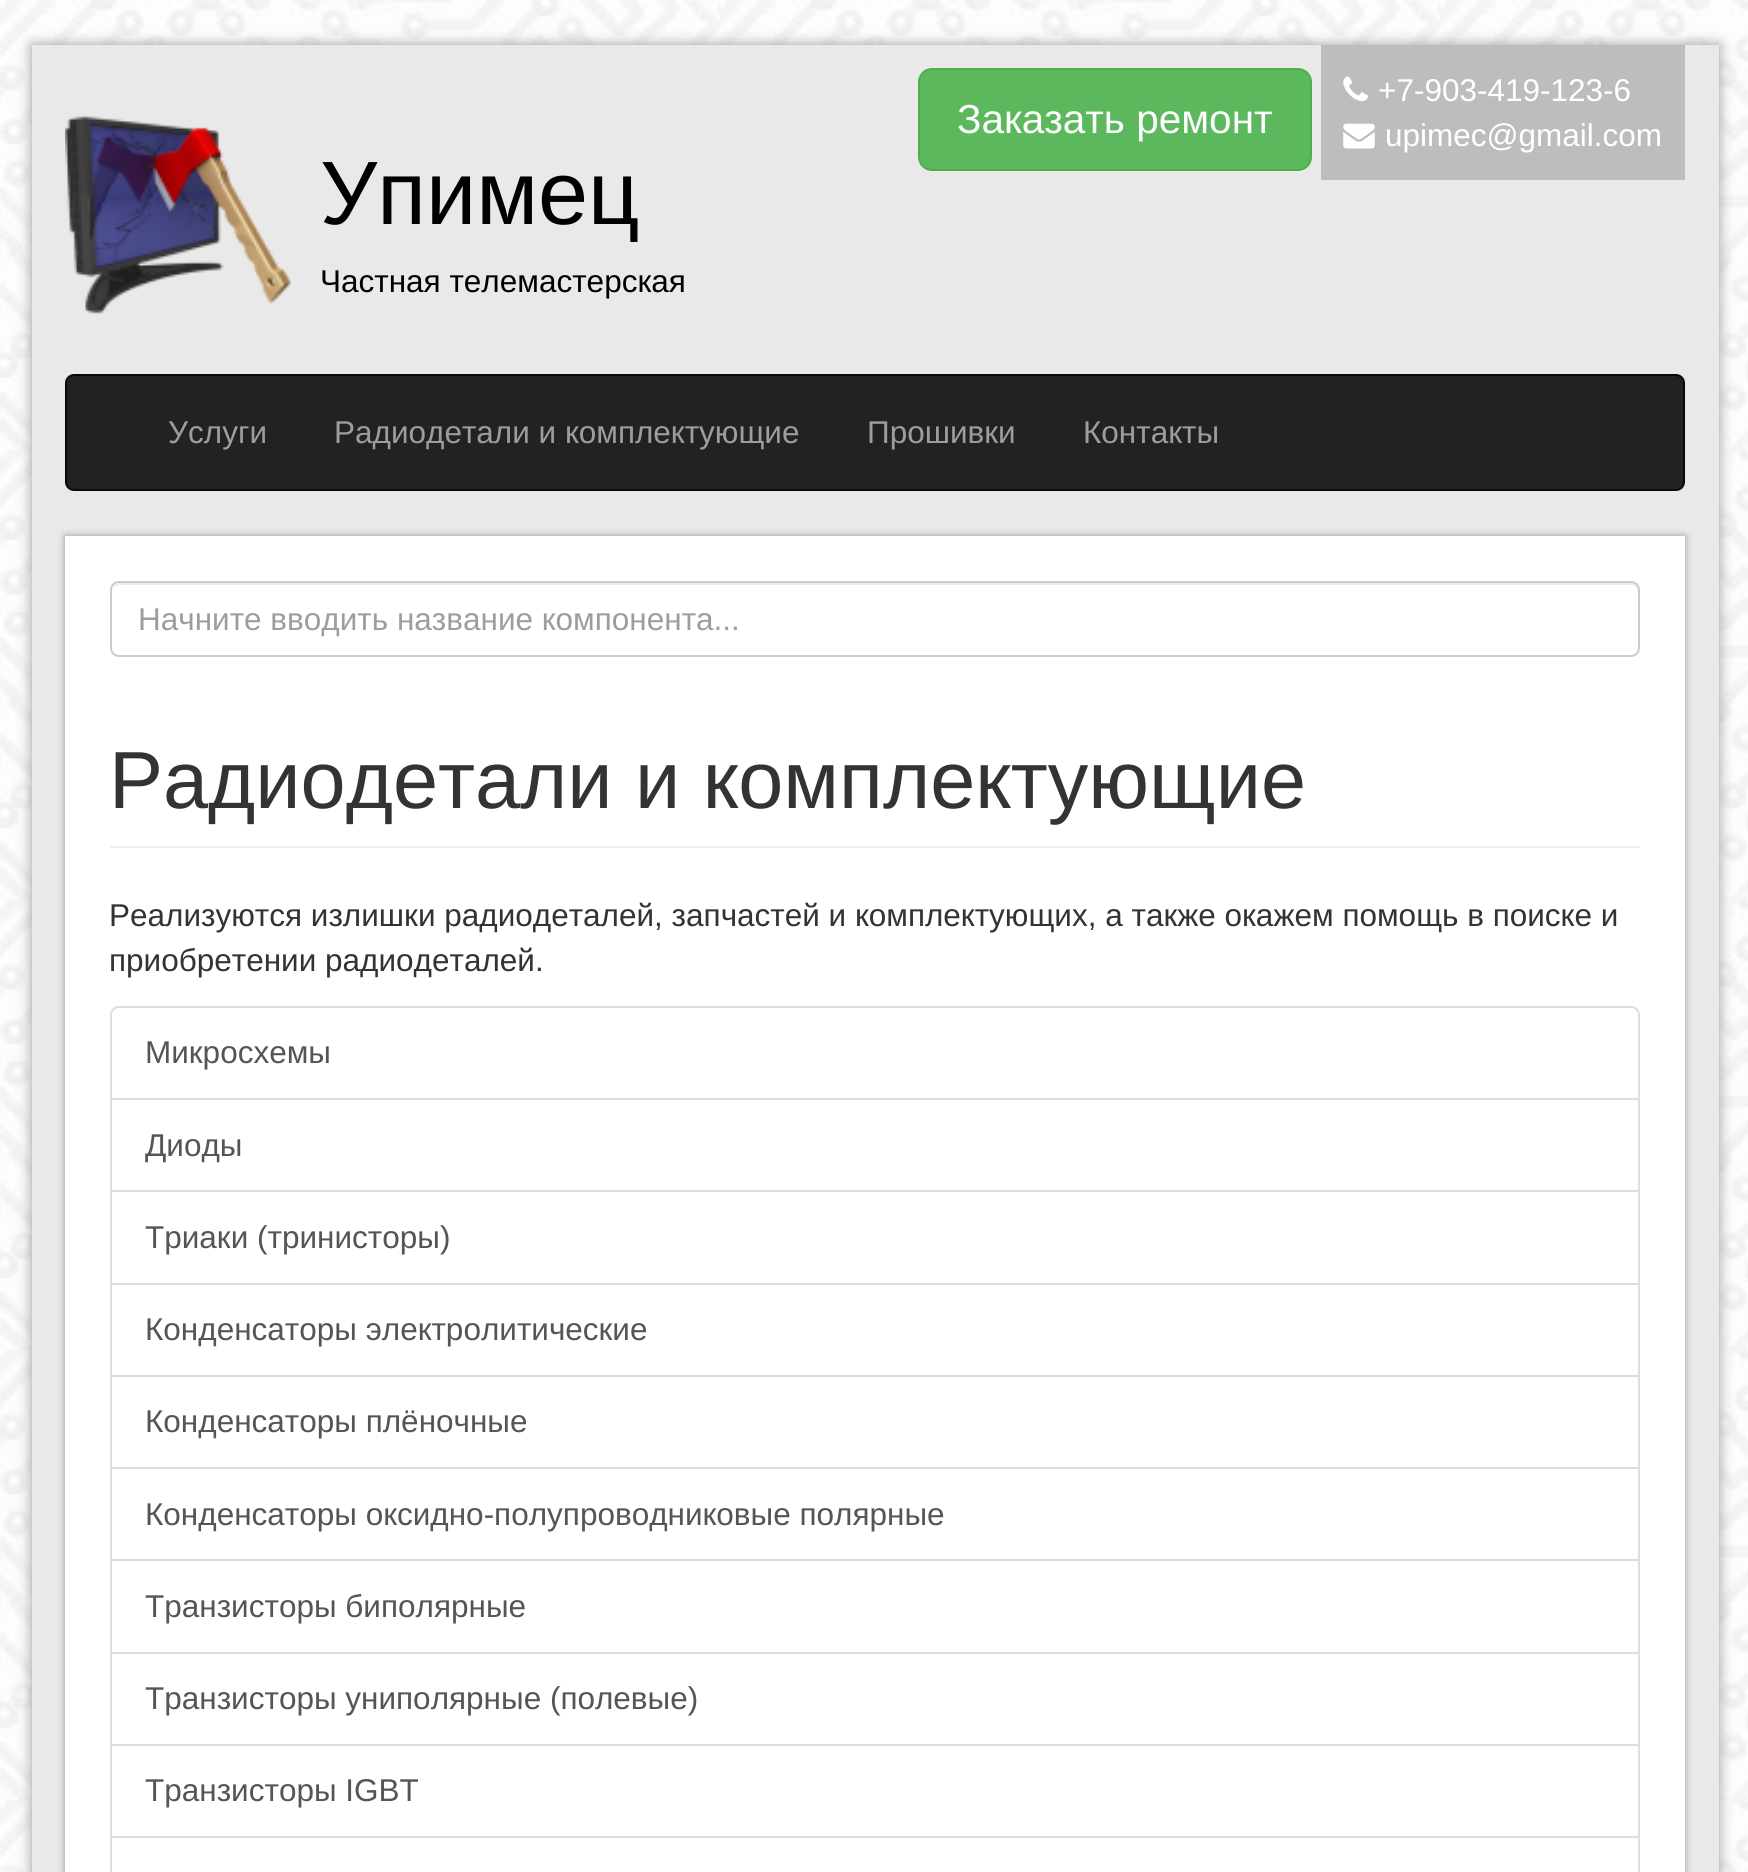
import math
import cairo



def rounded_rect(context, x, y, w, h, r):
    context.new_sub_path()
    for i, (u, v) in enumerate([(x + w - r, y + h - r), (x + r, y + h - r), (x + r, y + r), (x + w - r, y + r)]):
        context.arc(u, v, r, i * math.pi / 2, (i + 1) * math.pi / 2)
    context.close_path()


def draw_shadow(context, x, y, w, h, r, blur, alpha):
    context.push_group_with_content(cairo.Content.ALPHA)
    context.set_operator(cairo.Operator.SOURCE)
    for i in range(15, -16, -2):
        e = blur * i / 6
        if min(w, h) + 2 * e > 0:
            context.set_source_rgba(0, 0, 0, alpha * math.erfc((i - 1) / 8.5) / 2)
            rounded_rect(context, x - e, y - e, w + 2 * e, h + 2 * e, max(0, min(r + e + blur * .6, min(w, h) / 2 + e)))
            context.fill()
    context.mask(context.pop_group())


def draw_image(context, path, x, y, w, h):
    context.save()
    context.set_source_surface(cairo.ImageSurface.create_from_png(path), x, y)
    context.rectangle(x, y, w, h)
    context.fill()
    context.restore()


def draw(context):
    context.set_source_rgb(1, 1, 1)
    context.paint()
    draw_image(context, "images/1.png", 0, 0, 1748, 1872)
    context.set_source_rgb(153 / 255, 153 / 255, 153 / 255)
    draw_shadow(context, 32, 45, 1687, 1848, 0, 7, 1)
    context.set_source_rgb(233 / 255, 233 / 255, 233 / 255)
    context.rectangle(32, 45, 1687, 1827)
    context.fill()
    context.set_source_rgb(92 / 255, 184 / 255, 92 / 255)
    rounded_rect(context, 919, 69, 392, 101, 13)
    context.fill_preserve()
    context.set_source_rgb(76 / 255, 174 / 255, 76 / 255)
    context.stroke()
    context.set_source_rgb(189 / 255, 189 / 255, 189 / 255)
    context.rectangle(1321, 45, 364, 135)
    context.fill()
    draw_image(context, "images/2.png", 1343, 76, 25, 26)
    draw_image(context, "images/3.png", 1343, 123, 32, 26)
    draw_image(context, "images/4.png", 65, 116, 226, 198)
    context.set_source_rgb(34 / 255, 34 / 255, 34 / 255)
    rounded_rect(context, 66, 375, 1618, 115, 8)
    context.fill_preserve()
    context.set_source_rgb(9 / 255, 9 / 255, 9 / 255)
    context.stroke()
    context.set_source_rgb(153 / 255, 153 / 255, 153 / 255)
    draw_shadow(context, 65, 536, 1620, 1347, 0, 3.5, 1)
    context.set_source_rgb(1, 1, 1)
    context.rectangle(65, 536, 1620, 1336)
    context.fill()
    context.set_source_rgb(236 / 255, 236 / 255, 236 / 255)
    context.new_path()
    context.move_to(119, 585)
    context.line_to(1631, 585)
    context.curve_to(1635, 585, 1638, 588, 1638, 592)
    context.line_to(1638, 590)
    context.curve_to(1638, 586, 1635, 583, 1631, 583)
    context.line_to(120, 583)
    context.curve_to(117, 583, 114, 585, 113, 588)
    context.curve_to(115, 586, 117, 585, 119, 585)
    context.close_path()
    context.fill()
    rounded_rect(context, 111, 582, 1528, 74, 8)
    context.set_source_rgb(204 / 255, 204 / 255, 204 / 255)
    context.stroke()
    context.set_source_rgb(238 / 255, 238 / 255, 238 / 255)
    context.rectangle(110, 846, 1530, 2)
    context.fill()
    context.new_path()
    context.move_to(119, 1007)
    context.line_to(1631, 1007)
    context.curve_to(1635.5, 1007, 1639, 1010.5, 1639, 1015)
    context.line_to(1639, 1099)
    context.line_to(111, 1099)
    context.line_to(111, 1015)
    context.curve_to(111, 1010.5, 114.5, 1007, 119, 1007)
    context.close_path()
    context.set_source_rgb(221 / 255, 221 / 255, 221 / 255)
    context.stroke()
    context.rectangle(111, 1099, 1528, 93)
    context.stroke()
    context.set_source_rgb(1, 1, 1)
    context.rectangle(112, 1192, 1526, 1)
    context.fill()
    context.rectangle(111, 1191, 1528, 93)
    context.set_source_rgb(221 / 255, 221 / 255, 221 / 255)
    context.stroke()
    context.rectangle(111, 1284, 1528, 92)
    context.stroke()
    context.rectangle(111, 1376, 1528, 92)
    context.stroke()
    context.rectangle(111, 1468, 1528, 93)
    context.stroke()
    context.set_source_rgb(1, 1, 1)
    context.rectangle(112, 1561, 1526, 1)
    context.fill()
    context.rectangle(111, 1560, 1528, 93)
    context.set_source_rgb(221 / 255, 221 / 255, 221 / 255)
    context.stroke()
    context.rectangle(111, 1653, 1528, 92)
    context.stroke()
    context.rectangle(111, 1745, 1528, 92)
    context.stroke()
    context.rectangle(111, 1837, 1528, 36)
    context.stroke()
    context.select_font_face("Liberation Sans")
    context.set_font_size(40.5)
    context.set_source_rgb(1, 1, 1)
    context.move_to(957, 133)
    context.show_text("Заказать ремонт")
    context.set_font_size(31.5)
    context.move_to(1378, 101)
    context.show_text("+7-903-419-123-6")
    context.move_to(1385, 146)
    context.show_text("upimec@gmail.com")
    context.set_font_size(90)
    context.set_source_rgb(0, 0, 0)
    context.move_to(320, 224)
    context.show_text("Упимец")
    context.set_font_size(31.5)
    context.move_to(320, 292)
    context.show_text("Частная телемастерская")
    context.set_source_rgb(157 / 255, 157 / 255, 157 / 255)
    context.move_to(168, 443)
    context.show_text("Услуги")
    context.move_to(334, 443)
    context.show_text("Радиодетали и комплектующие")
    context.move_to(867, 443)
    context.show_text("Прошивки")
    context.move_to(1083, 443)
    context.show_text("Контакты")
    context.move_to(138, 630)
    context.show_text("Начните вводить название компонента...")
    context.set_font_size(81)
    context.set_source_rgb(51 / 255, 51 / 255, 51 / 255)
    context.move_to(109, 808)
    context.show_text("Радиодетали и комплектующие")
    context.set_font_size(31.5)
    context.move_to(109, 926)
    context.show_text("Реализуются излишки радиодеталей, запчастей и комплектующих, а также окажем помощь в поиске и")
    context.move_to(109, 971)
    context.show_text("приобретении радиодеталей.")
    context.set_source_rgb(85 / 255, 85 / 255, 85 / 255)
    context.move_to(145, 1063)
    context.show_text("Микросхемы")
    context.move_to(145, 1156)
    context.show_text("Диоды")
    context.move_to(145, 1248)
    context.show_text("Триаки (тринисторы)")
    context.move_to(145, 1340)
    context.show_text("Конденсаторы электролитические")
    context.move_to(145, 1432)
    context.show_text("Конденсаторы плёночные")
    context.move_to(145, 1525)
    context.show_text("Конденсаторы оксидно-полупроводниковые полярные")
    context.move_to(145, 1617)
    context.show_text("Транзисторы биполярные")
    context.move_to(145, 1709)
    context.show_text("Транзисторы униполярные (полевые)")
    context.move_to(145, 1801)
    context.show_text("Транзисторы IGBT")


surface = cairo.ImageSurface(cairo.Format.RGB24, 1748, 1872)
context = cairo.Context(surface)
options = cairo.FontOptions()
options.set_hint_metrics(cairo.HintMetrics.OFF)
options.set_hint_style(cairo.HintStyle.NONE)
context.set_font_options(options)
context.set_miter_limit(4)
draw(context)
surface.write_to_png("out.png")
